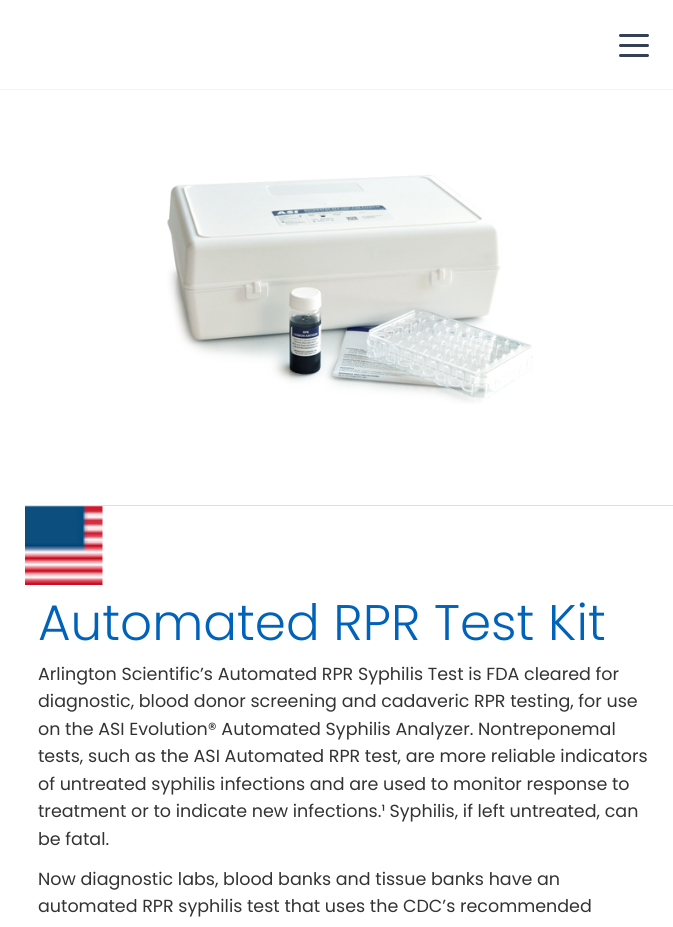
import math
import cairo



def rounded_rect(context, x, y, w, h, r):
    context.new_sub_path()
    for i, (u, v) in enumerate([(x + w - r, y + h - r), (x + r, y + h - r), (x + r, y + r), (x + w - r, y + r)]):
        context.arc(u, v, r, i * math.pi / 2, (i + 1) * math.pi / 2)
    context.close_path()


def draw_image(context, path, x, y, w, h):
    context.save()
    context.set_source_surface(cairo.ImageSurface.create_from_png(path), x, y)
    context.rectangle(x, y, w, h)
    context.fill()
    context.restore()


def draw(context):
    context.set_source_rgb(1, 1, 1)
    context.paint()
    context.set_source_rgb(242 / 255, 244 / 255, 247 / 255)
    context.rectangle(0, 89, 673, 1)
    context.fill()
    context.set_source_rgb(52 / 255, 64 / 255, 84 / 255)
    rounded_rect(context, 619, 34, 30, 3, 1.5)
    context.fill()
    rounded_rect(context, 619, 44, 30, 3, 1.5)
    context.fill()
    rounded_rect(context, 619, 54, 30, 3, 1.5)
    context.fill()
    draw_image(context, "images/1.png", 167, 174, 366, 230)
    context.set_source_rgb(223 / 255, 223 / 255, 223 / 255)
    context.rectangle(25, 505, 648, 1)
    context.fill()
    draw_image(context, "images/2.png", 25, 506, 78, 79)
    context.select_font_face("Poppins Light")
    context.set_font_size(50)
    context.set_source_rgb(0, 98 / 255, 184 / 255)
    context.move_to(38, 640)
    context.show_text("Automated RPR Test Kit")
    context.select_font_face("Poppins")
    context.set_font_size(17.5)
    context.set_source_rgb(51 / 255, 51 / 255, 51 / 255)
    context.move_to(38, 680)
    context.show_text("Arlington Scientific’s Automated RPR Syphilis Test is FDA cleared for")
    context.move_to(38, 707)
    context.show_text("diagnostic, blood donor screening and cadaveric RPR testing, for use")
    context.move_to(38, 735)
    context.show_text("on the ASI Evolution® Automated Syphilis Analyzer. Nontreponemal")
    context.move_to(38, 762)
    context.show_text("tests, such as the ASI Automated RPR test, are more reliable indicators")
    context.move_to(38, 790)
    context.show_text("of untreated syphilis infections and are used to monitor response to")
    context.move_to(38, 817)
    context.show_text("treatment or to indicate new infections.¹ Syphilis, if left untreated, can")
    context.move_to(38, 845)
    context.show_text("be fatal.")
    context.move_to(38, 885)
    context.show_text("Now diagnostic labs, blood banks and tissue banks have an")
    context.move_to(38, 912)
    context.show_text("automated RPR syphilis test that uses the CDC’s recommended")


surface = cairo.ImageSurface(cairo.Format.RGB24, 673, 927)
context = cairo.Context(surface)
options = cairo.FontOptions()
options.set_hint_metrics(cairo.HintMetrics.OFF)
options.set_hint_style(cairo.HintStyle.NONE)
context.set_font_options(options)
context.set_miter_limit(4)
draw(context)
surface.write_to_png("out.png")
